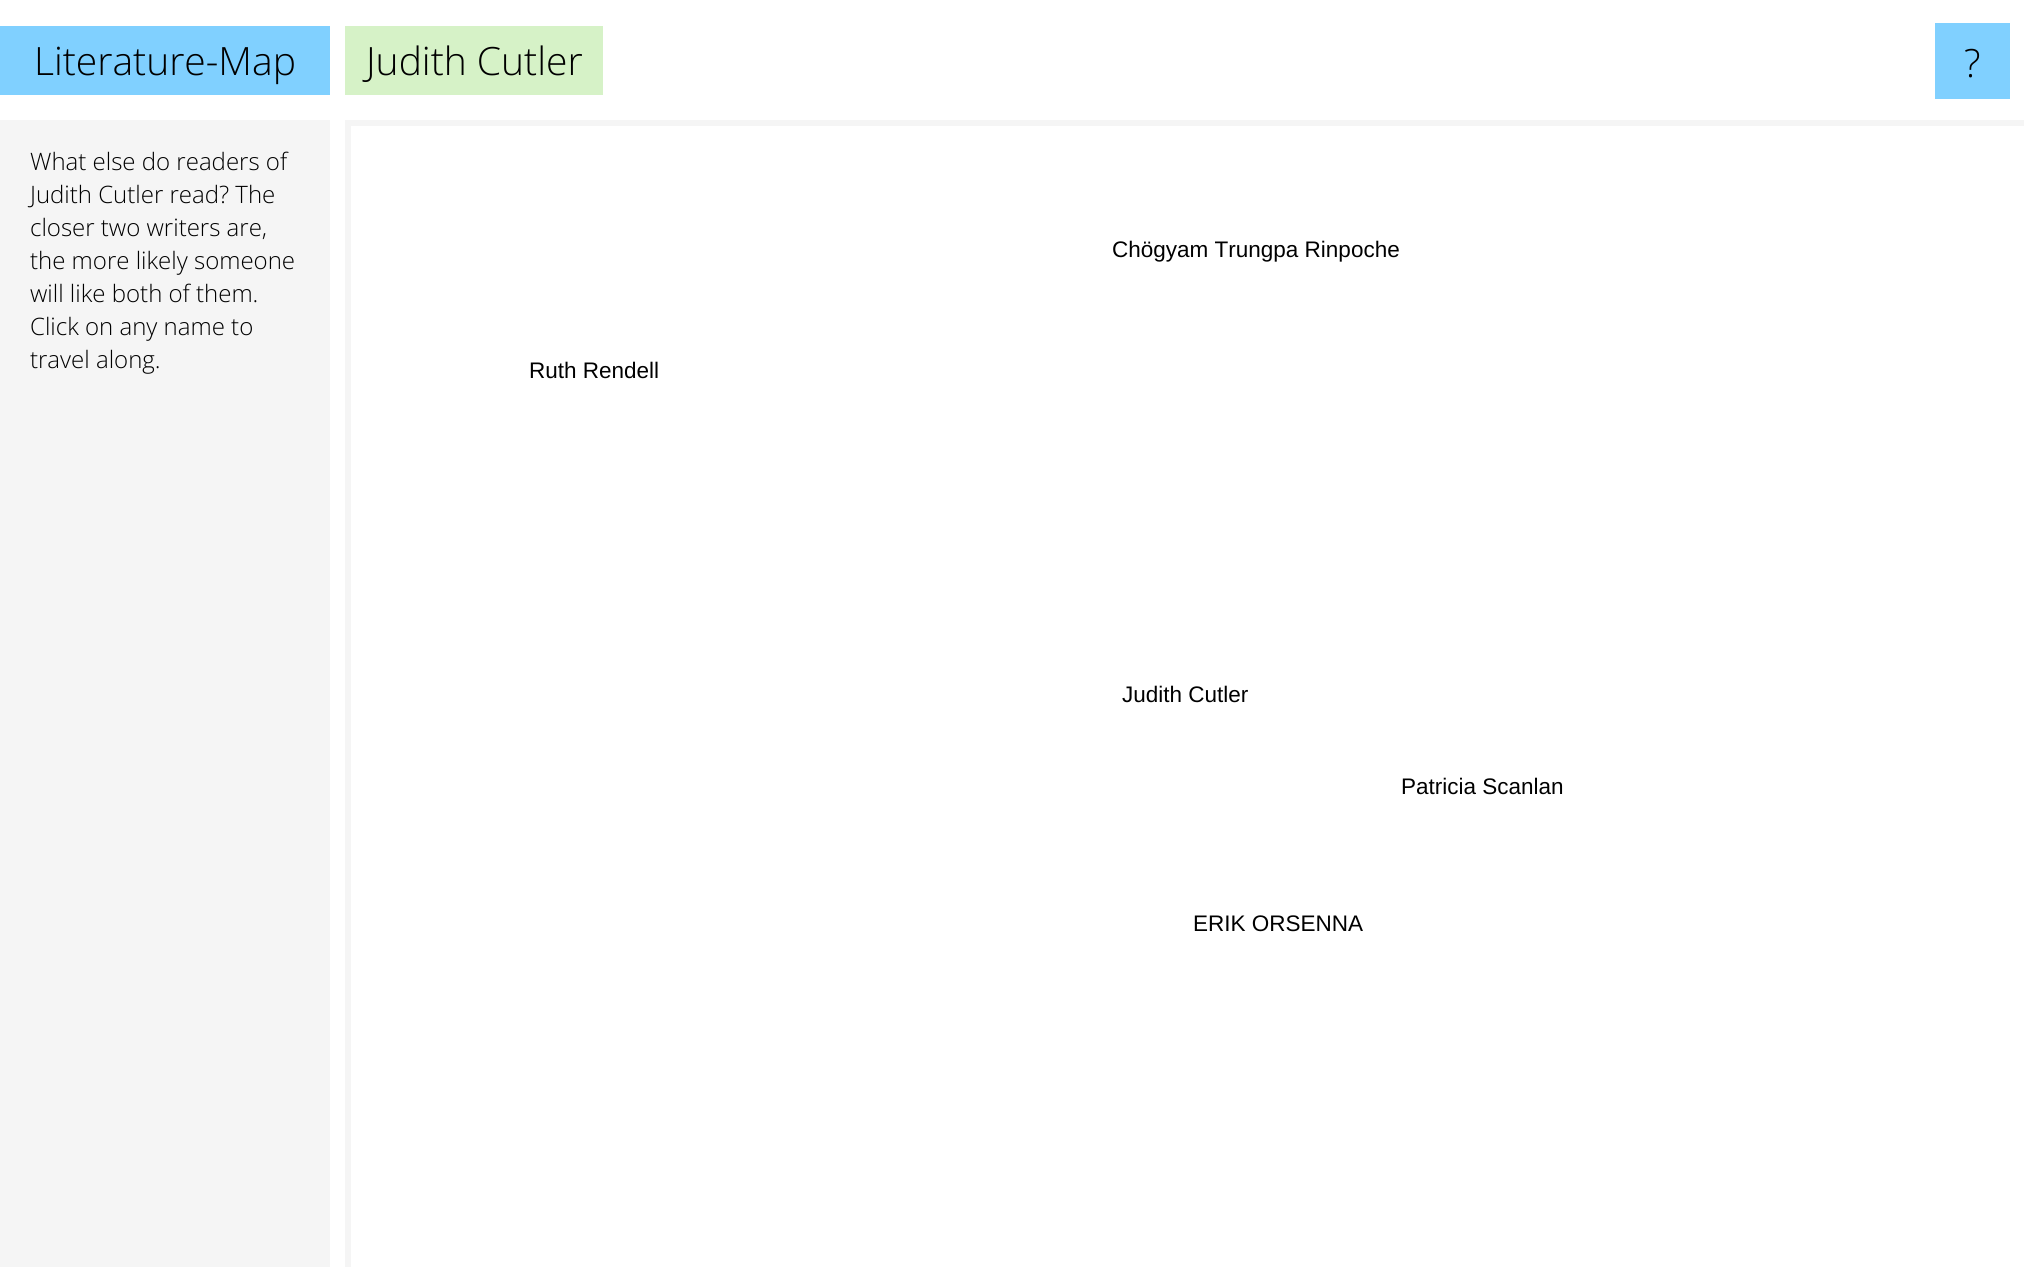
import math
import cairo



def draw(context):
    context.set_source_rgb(1, 1, 1)
    context.paint()
    context.set_source_rgb(128 / 255, 208 / 255, 1)
    context.rectangle(0, 26, 330, 69)
    context.fill()
    context.set_source_rgb(214 / 255, 242 / 255, 199 / 255)
    context.rectangle(345, 26, 258, 69)
    context.fill()
    context.set_source_rgb(128 / 255, 208 / 255, 1)
    context.rectangle(1935, 23, 75, 76)
    context.fill()
    context.set_source_rgb(245 / 255, 245 / 255, 245 / 255)
    context.rectangle(0, 120, 330, 1147)
    context.fill()
    context.save()
    context.rectangle(345, 120, 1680, 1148)
    context.clip()
    context.set_fill_rule(cairo.FillRule.EVEN_ODD)
    context.new_path()
    context.move_to(196, -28)
    context.line_to(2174, -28)
    context.line_to(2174, 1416)
    context.line_to(196, 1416)
    context.close_path()
    context.move_to(351, 126)
    context.line_to(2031, 126)
    context.line_to(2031, 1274)
    context.line_to(351, 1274)
    context.close_path()
    context.fill()
    context.restore()
    context.select_font_face("Open Sans Light")
    context.set_font_size(39)
    context.set_source_rgb(0, 0, 0)
    context.move_to(34, 75)
    context.show_text("Literature-Map")
    context.move_to(366, 75)
    context.show_text("Judith Cutler")
    context.move_to(1964, 77)
    context.show_text("?")
    context.set_font_size(24)
    context.move_to(30, 170)
    context.show_text("What else do readers of")
    context.move_to(30, 203)
    context.show_text("Judith Cutler read? The")
    context.move_to(30, 236)
    context.show_text("closer two writers are,")
    context.move_to(30, 269)
    context.show_text("the more likely someone")
    context.move_to(30, 302)
    context.show_text("will like both of them.")
    context.move_to(30, 335)
    context.show_text("Click on any name to")
    context.move_to(30, 368)
    context.show_text("travel along.")
    context.select_font_face("Liberation Sans")
    context.set_font_size(22.5)
    context.move_to(1112, 257)
    context.show_text("Chögyam Trungpa Rinpoche")
    context.move_to(529, 378)
    context.show_text("Ruth Rendell")
    context.move_to(1122, 702)
    context.show_text("Judith Cutler")
    context.move_to(1401, 794)
    context.show_text("Patricia Scanlan")
    context.move_to(1193, 931)
    context.show_text("ERIK ORSENNA")


surface = cairo.ImageSurface(cairo.Format.RGB24, 2024, 1267)
context = cairo.Context(surface)
options = cairo.FontOptions()
options.set_hint_metrics(cairo.HintMetrics.OFF)
options.set_hint_style(cairo.HintStyle.NONE)
context.set_font_options(options)
context.set_miter_limit(4)
draw(context)
surface.write_to_png("out.png")
